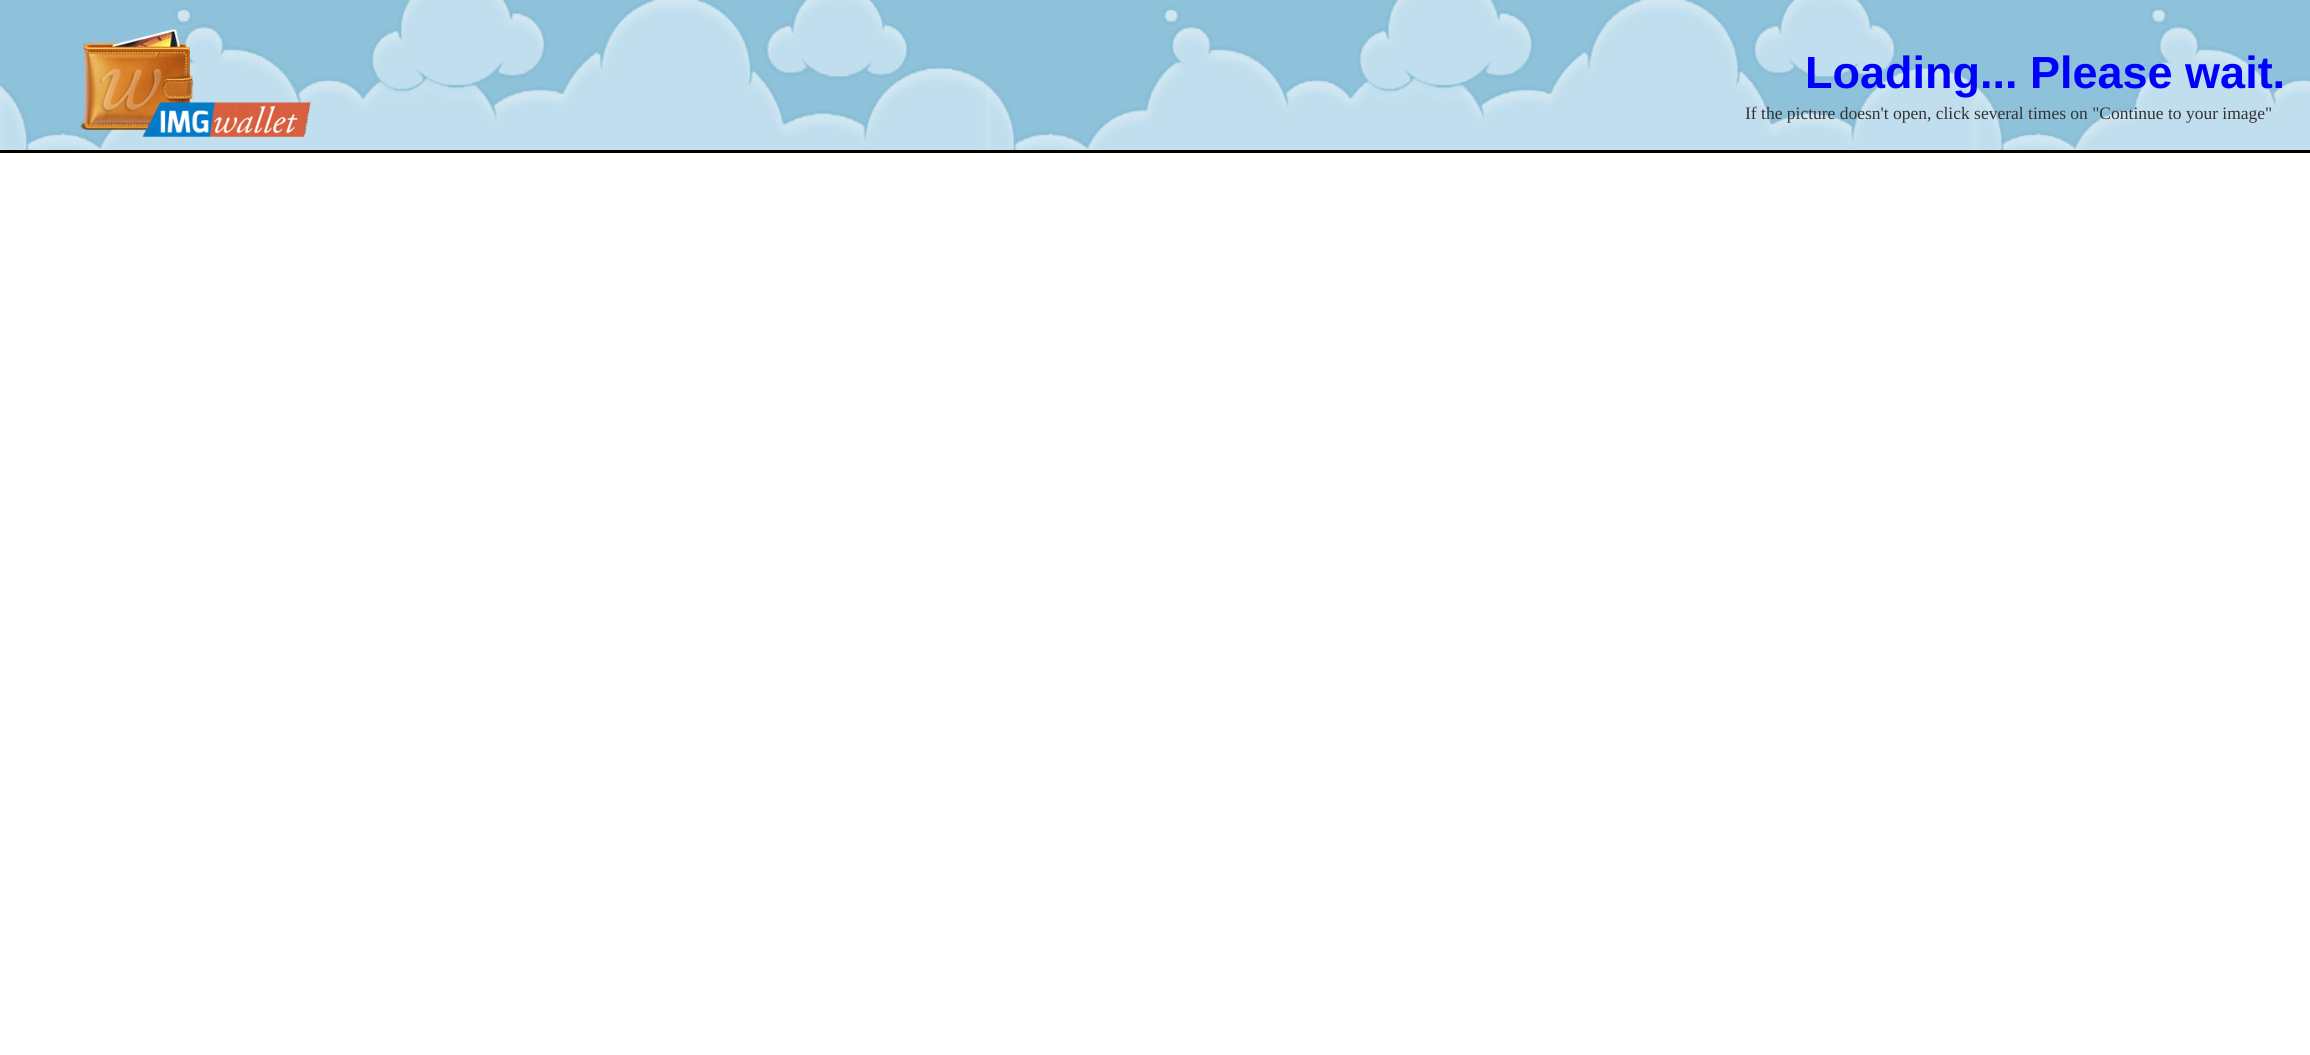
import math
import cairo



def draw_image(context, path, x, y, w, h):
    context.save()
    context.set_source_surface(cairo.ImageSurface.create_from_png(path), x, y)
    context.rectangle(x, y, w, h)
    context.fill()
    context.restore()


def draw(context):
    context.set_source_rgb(1, 1, 1)
    context.paint()
    draw_image(context, "images/1.png", 0, 0, 2310, 150)
    draw_image(context, "images/2.png", 80, 29, 231, 108)
    context.set_source_rgb(0, 0, 0)
    context.rectangle(0, 150, 2310, 3)
    context.fill()
    context.select_font_face("Liberation Sans", cairo.FontSlant.NORMAL, cairo.FontWeight.BOLD)
    context.set_font_size(45)
    context.set_source_rgb(0, 0, 1)
    context.move_to(1805, 88)
    context.show_text("Loading... Please wait.")
    context.select_font_face("Liberation Serif")
    context.set_font_size(17.5)
    context.set_source_rgb(51 / 255, 51 / 255, 51 / 255)
    context.move_to(1745, 119)
    context.show_text("If the picture doesn't open, click several times on \"Continue to your image\"")


surface = cairo.ImageSurface(cairo.Format.RGB24, 2310, 1055)
context = cairo.Context(surface)
options = cairo.FontOptions()
options.set_hint_metrics(cairo.HintMetrics.OFF)
options.set_hint_style(cairo.HintStyle.NONE)
context.set_font_options(options)
context.set_miter_limit(4)
draw(context)
surface.write_to_png("out.png")
